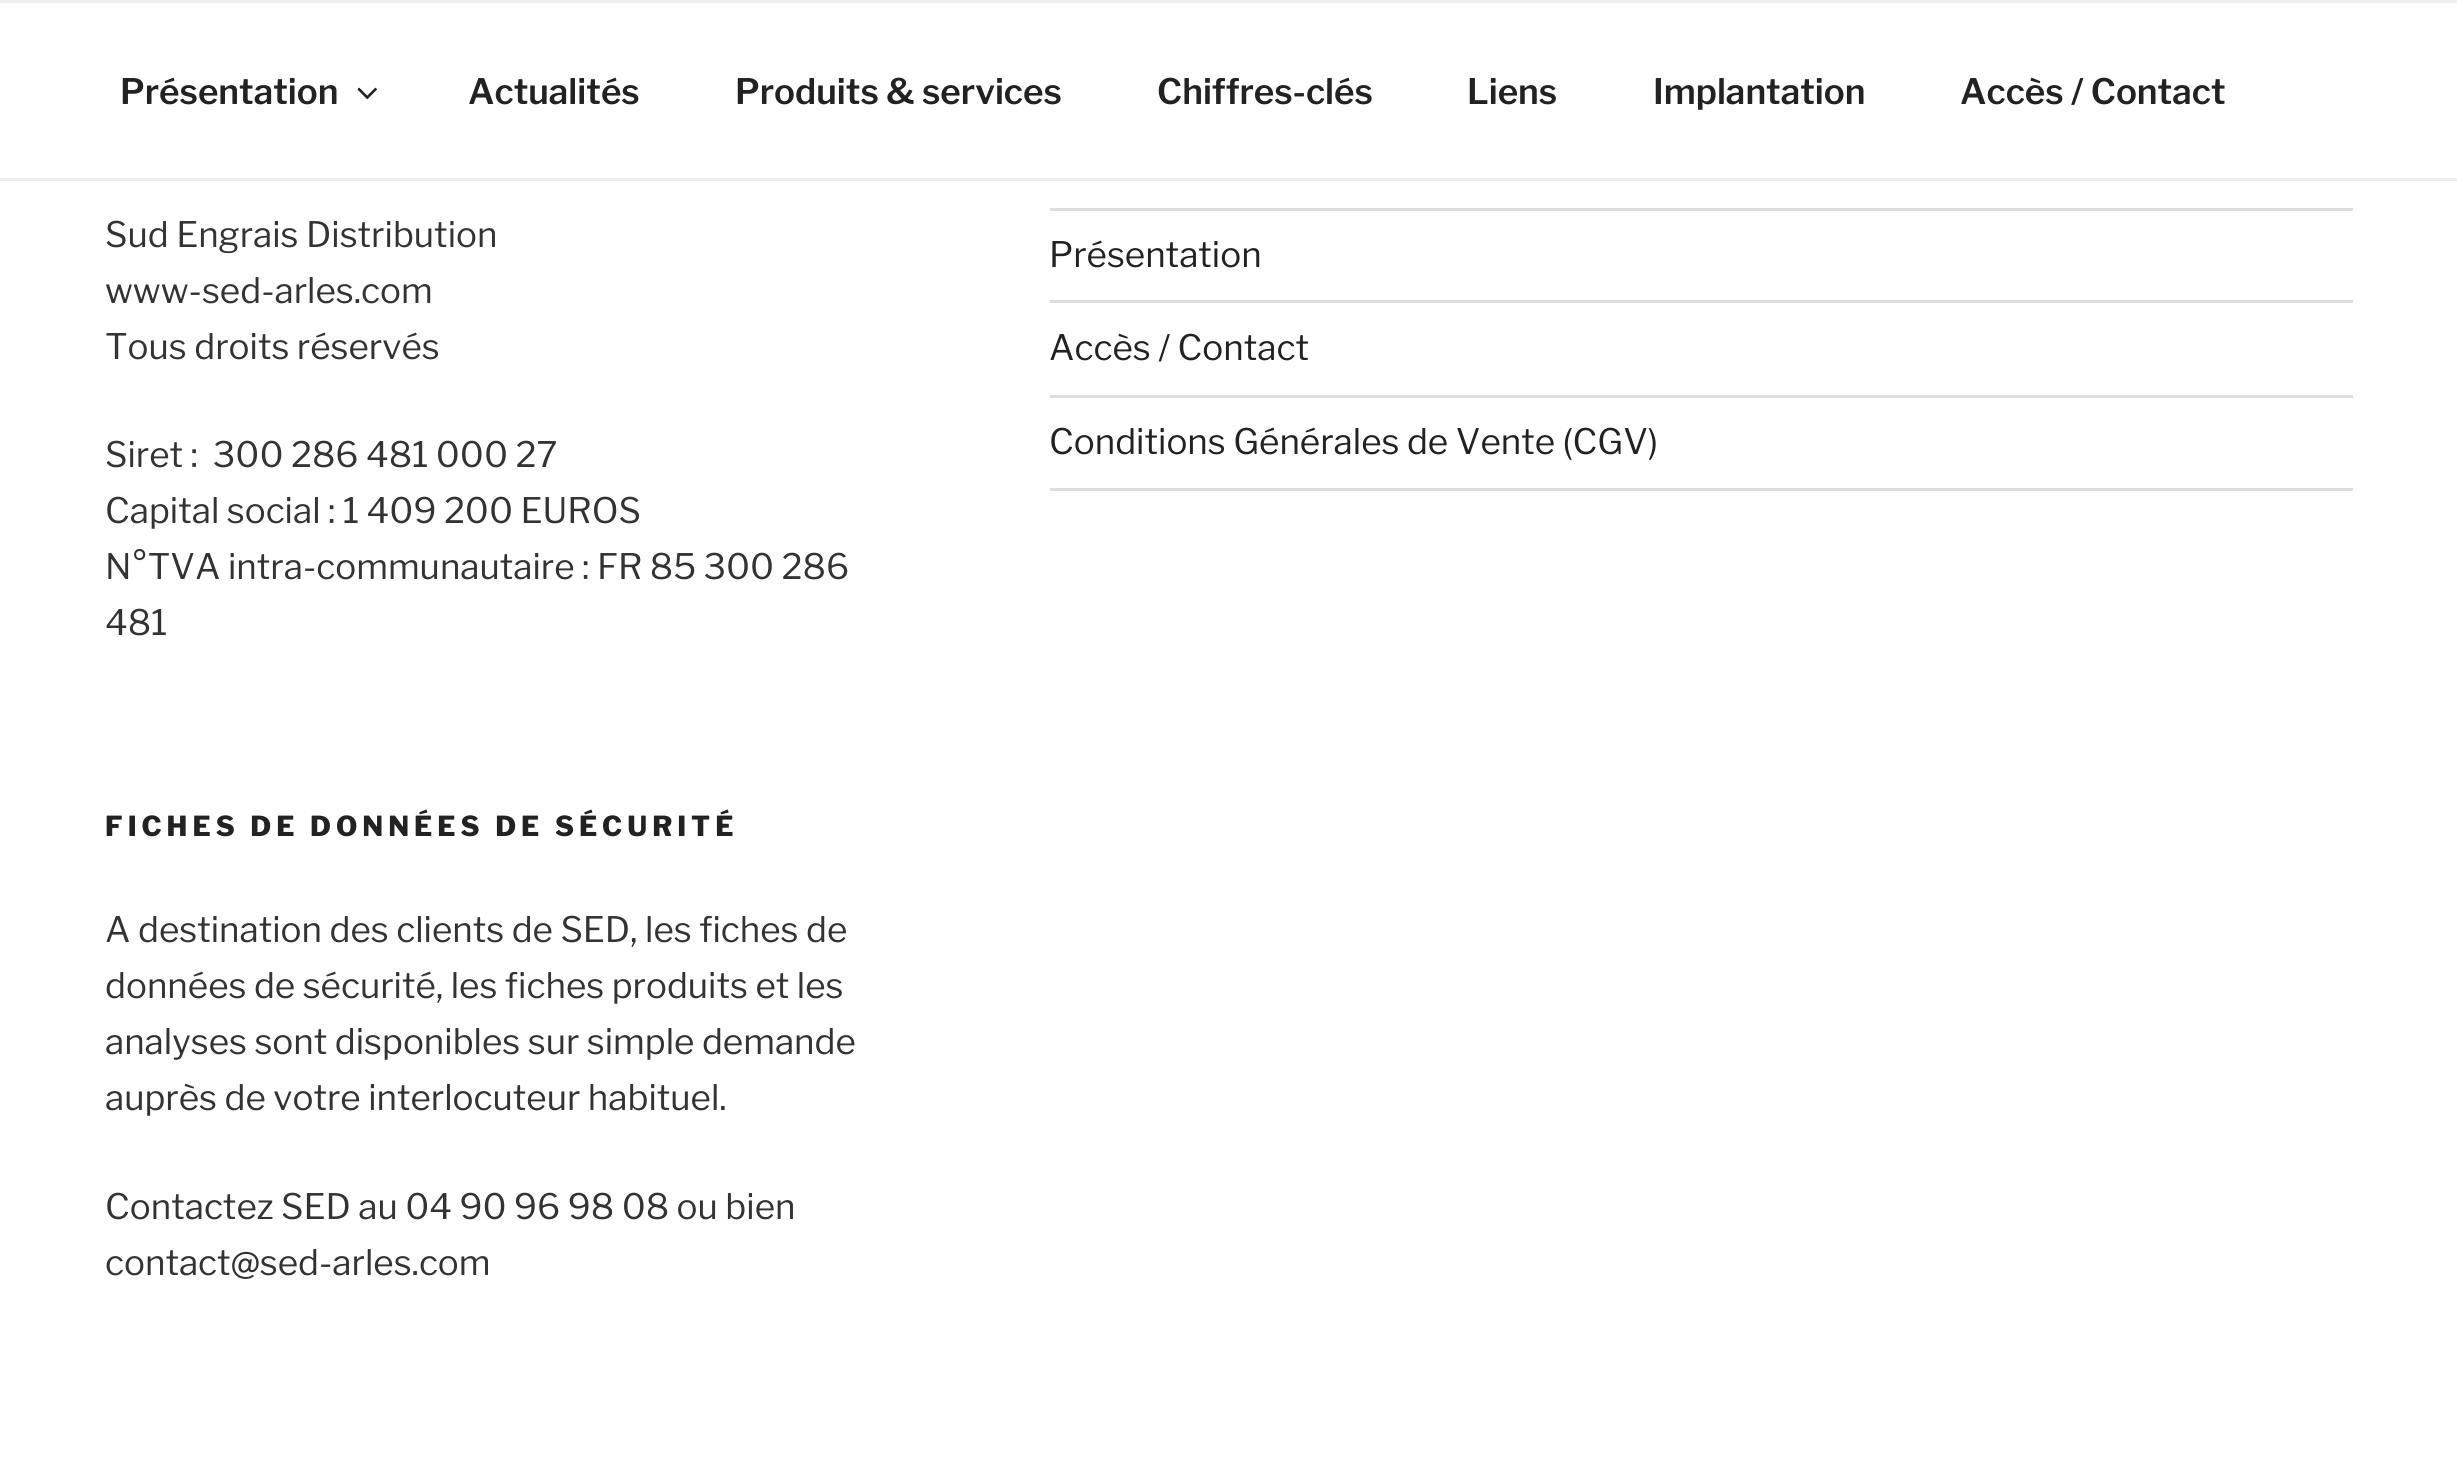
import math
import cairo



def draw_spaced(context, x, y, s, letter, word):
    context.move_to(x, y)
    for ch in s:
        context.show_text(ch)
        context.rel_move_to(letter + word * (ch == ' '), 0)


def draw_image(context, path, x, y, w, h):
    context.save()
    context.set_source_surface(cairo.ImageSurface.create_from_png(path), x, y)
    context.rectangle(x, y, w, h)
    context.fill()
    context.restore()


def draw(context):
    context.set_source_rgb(1, 1, 1)
    context.paint()
    context.set_source_rgb(238 / 255, 238 / 255, 238 / 255)
    context.rectangle(0, 0, 2457, 3)
    context.fill()
    context.rectangle(0, 178, 2457, 3)
    context.fill()
    draw_image(context, "images/1.png", 357, 87, 20, 13)
    context.set_source_rgb(221 / 255, 221 / 255, 221 / 255)
    context.rectangle(1050, 208, 1303, 3)
    context.fill()
    context.rectangle(1050, 300, 1303, 3)
    context.fill()
    context.rectangle(1050, 395, 1303, 3)
    context.fill()
    context.rectangle(1050, 488, 1303, 3)
    context.fill()
    context.select_font_face("Libre Franklin SemiBold")
    context.set_font_size(35)
    context.set_source_rgb(34 / 255, 34 / 255, 34 / 255)
    context.move_to(120, 104)
    context.show_text("Présentation")
    context.move_to(468, 104)
    context.show_text("Actualités")
    context.move_to(735, 104)
    context.show_text("Produits & services")
    context.move_to(1157, 104)
    context.show_text("Chiffres-clés")
    context.move_to(1467, 104)
    context.show_text("Liens")
    context.move_to(1653, 104)
    context.show_text("Implantation")
    context.move_to(1960, 104)
    context.show_text("Accès / Contact")
    context.select_font_face("Libre Franklin")
    context.set_source_rgb(51 / 255, 51 / 255, 51 / 255)
    context.move_to(105, 247)
    context.show_text("Sud Engrais Distribution")
    context.move_to(105, 303)
    context.show_text("www-sed-arles.com")
    context.move_to(105, 359)
    context.show_text("Tous droits réservés")
    context.move_to(105, 467)
    context.show_text("Siret :  300 286 481 000 27")
    context.move_to(105, 523)
    context.show_text("Capital social : 1 409 200 EUROS")
    context.move_to(105, 579)
    context.show_text("N°TVA intra-communautaire : FR 85 300 286")
    context.move_to(105, 635)
    context.show_text("481")
    context.select_font_face("Libre Franklin ExtraBold")
    context.set_font_size(27.5)
    context.set_source_rgb(34 / 255, 34 / 255, 34 / 255)
    draw_spaced(context, 105, 836, "FICHES DE DONNÉES DE SÉCURITÉ", 5, 0)
    context.select_font_face("Libre Franklin")
    context.set_font_size(35)
    context.set_source_rgb(51 / 255, 51 / 255, 51 / 255)
    context.move_to(105, 942)
    context.show_text("A destination des clients de SED, les fiches de")
    context.move_to(105, 998)
    context.show_text("données de sécurité, les fiches produits et les")
    context.move_to(105, 1054)
    context.show_text("analyses sont disponibles sur simple demande")
    context.move_to(105, 1110)
    context.show_text("auprès de votre interlocuteur habituel.")
    context.move_to(105, 1219)
    context.show_text("Contactez SED au 04 90 96 98 08 ou bien")
    context.move_to(105, 1275)
    context.show_text("contact@sed-arles.com")
    context.set_source_rgb(34 / 255, 34 / 255, 34 / 255)
    context.move_to(1049, 267)
    context.show_text("Présentation")
    context.move_to(1049, 360)
    context.show_text("Accès / Contact")
    context.move_to(1049, 454)
    context.show_text("Conditions Générales de Vente (CGV)")


surface = cairo.ImageSurface(cairo.Format.RGB24, 2457, 1469)
context = cairo.Context(surface)
options = cairo.FontOptions()
options.set_hint_metrics(cairo.HintMetrics.OFF)
options.set_hint_style(cairo.HintStyle.NONE)
context.set_font_options(options)
context.set_miter_limit(4)
draw(context)
surface.write_to_png("out.png")
